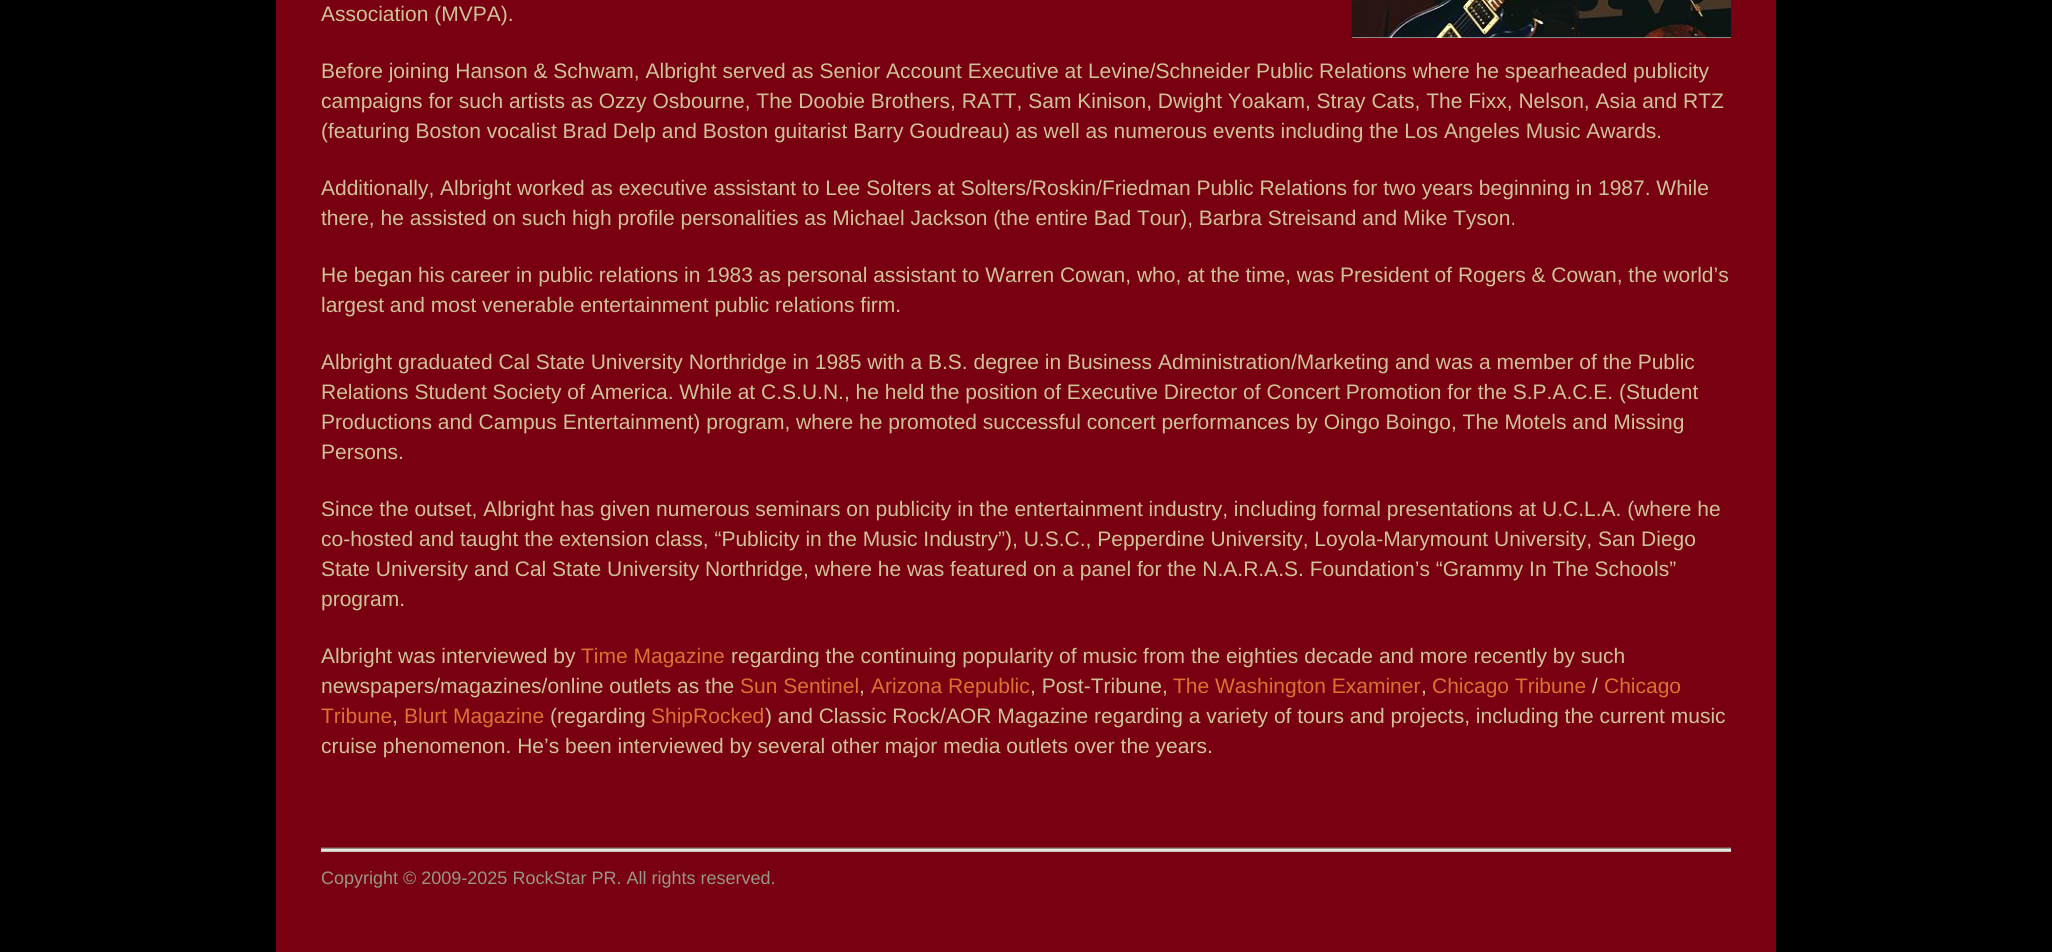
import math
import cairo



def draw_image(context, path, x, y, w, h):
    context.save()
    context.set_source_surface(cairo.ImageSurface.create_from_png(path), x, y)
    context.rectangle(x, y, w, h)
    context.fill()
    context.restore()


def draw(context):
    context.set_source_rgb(0, 0, 0)
    context.paint()
    context.set_source_rgb(120 / 255, 0, 16 / 255)
    context.rectangle(276, 0, 1500, 952)
    context.fill()
    context.set_source_rgb(1, 1, 1)
    context.rectangle(1352, 37, 379, 1)
    context.fill()
    draw_image(context, "images/1.png", 1351, 0, 380, 38)
    draw_image(context, "images/2.png", 321, 847, 1410, 5)
    context.select_font_face("Liberation Sans")
    context.set_font_size(21)
    context.set_source_rgb(206 / 255, 195 / 255, 152 / 255)
    context.move_to(321, 21)
    context.show_text("Association (MVPA).")
    context.move_to(321, 78)
    context.show_text("Before joining Hanson & Schwam, Albright served as Senior Account Executive at Levine/Schneider Public Relations where he spearheaded publicity")
    context.move_to(321, 108)
    context.show_text("campaigns for such artists as Ozzy Osbourne, The Doobie Brothers, RATT, Sam Kinison, Dwight Yoakam, Stray Cats, The Fixx, Nelson, Asia and RTZ")
    context.move_to(321, 138)
    context.show_text("(featuring Boston vocalist Brad Delp and Boston guitarist Barry Goudreau) as well as numerous events including the Los Angeles Music Awards.")
    context.move_to(321, 195)
    context.show_text("Additionally, Albright worked as executive assistant to Lee Solters at Solters/Roskin/Friedman Public Relations for two years beginning in 1987. While")
    context.move_to(321, 225)
    context.show_text("there, he assisted on such high profile personalities as Michael Jackson (the entire Bad Tour), Barbra Streisand and Mike Tyson.")
    context.move_to(321, 282)
    context.show_text("He began his career in public relations in 1983 as personal assistant to Warren Cowan, who, at the time, was President of Rogers & Cowan, the world’s")
    context.move_to(321, 312)
    context.show_text("largest and most venerable entertainment public relations firm.")
    context.move_to(321, 369)
    context.show_text("Albright graduated Cal State University Northridge in 1985 with a B.S. degree in Business Administration/Marketing and was a member of the Public")
    context.move_to(321, 399)
    context.show_text("Relations Student Society of America. While at C.S.U.N., he held the position of Executive Director of Concert Promotion for the S.P.A.C.E. (Student")
    context.move_to(321, 429)
    context.show_text("Productions and Campus Entertainment) program, where he promoted successful concert performances by Oingo Boingo, The Motels and Missing")
    context.move_to(321, 459)
    context.show_text("Persons.")
    context.move_to(321, 516)
    context.show_text("Since the outset, Albright has given numerous seminars on publicity in the entertainment industry, including formal presentations at U.C.L.A. (where he")
    context.move_to(321, 546)
    context.show_text("co-hosted and taught the extension class, “Publicity in the Music Industry”), U.S.C., Pepperdine University, Loyola-Marymount University, San Diego")
    context.move_to(321, 576)
    context.show_text("State University and Cal State University Northridge, where he was featured on a panel for the N.A.R.A.S. Foundation’s “Grammy In The Schools”")
    context.move_to(321, 606)
    context.show_text("program.")
    context.move_to(321, 663)
    context.show_text("Albright was interviewed by")
    context.set_source_rgb(223 / 255, 112 / 255, 52 / 255)
    context.move_to(581, 663)
    context.show_text("Time Magazine")
    context.set_source_rgb(206 / 255, 195 / 255, 152 / 255)
    context.move_to(731, 663)
    context.show_text("regarding the continuing popularity of music from the eighties decade and more recently by such")
    context.move_to(321, 693)
    context.show_text("newspapers/magazines/online outlets as the")
    context.set_source_rgb(223 / 255, 112 / 255, 52 / 255)
    context.move_to(740, 693)
    context.show_text("Sun Sentinel")
    context.set_source_rgb(206 / 255, 195 / 255, 152 / 255)
    context.move_to(859, 693)
    context.show_text(",")
    context.set_source_rgb(223 / 255, 112 / 255, 52 / 255)
    context.move_to(871, 693)
    context.show_text("Arizona Republic")
    context.set_source_rgb(206 / 255, 195 / 255, 152 / 255)
    context.move_to(1030, 693)
    context.show_text(", Post-Tribune,")
    context.set_source_rgb(223 / 255, 112 / 255, 52 / 255)
    context.move_to(1173, 693)
    context.show_text("The Washington Examiner")
    context.set_source_rgb(206 / 255, 195 / 255, 152 / 255)
    context.move_to(1421, 693)
    context.show_text(",")
    context.set_source_rgb(223 / 255, 112 / 255, 52 / 255)
    context.move_to(1432, 693)
    context.show_text("Chicago Tribune")
    context.set_source_rgb(206 / 255, 195 / 255, 152 / 255)
    context.move_to(1592, 693)
    context.show_text("/")
    context.set_source_rgb(223 / 255, 112 / 255, 52 / 255)
    context.move_to(1604, 693)
    context.show_text("Chicago")
    context.move_to(321, 723)
    context.show_text("Tribune")
    context.set_source_rgb(206 / 255, 195 / 255, 152 / 255)
    context.move_to(392, 723)
    context.show_text(",")
    context.set_source_rgb(223 / 255, 112 / 255, 52 / 255)
    context.move_to(404, 723)
    context.show_text("Blurt Magazine")
    context.set_source_rgb(206 / 255, 195 / 255, 152 / 255)
    context.move_to(550, 723)
    context.show_text("(regarding")
    context.set_source_rgb(223 / 255, 112 / 255, 52 / 255)
    context.move_to(651, 723)
    context.show_text("ShipRocked")
    context.set_source_rgb(206 / 255, 195 / 255, 152 / 255)
    context.move_to(765, 723)
    context.show_text(") and Classic Rock/AOR Magazine regarding a variety of tours and projects, including the current music")
    context.move_to(321, 753)
    context.show_text("cruise phenomenon. He’s been interviewed by several other major media outlets over the years.")
    context.set_font_size(18)
    context.set_source_rgb(153 / 255, 150 / 255, 137 / 255)
    context.move_to(321, 884)
    context.show_text("Copyright © 2009-2025 RockStar PR. All rights reserved.")


surface = cairo.ImageSurface(cairo.Format.RGB24, 2052, 952)
context = cairo.Context(surface)
options = cairo.FontOptions()
options.set_hint_metrics(cairo.HintMetrics.OFF)
options.set_hint_style(cairo.HintStyle.NONE)
context.set_font_options(options)
context.set_miter_limit(4)
draw(context)
surface.write_to_png("out.png")
